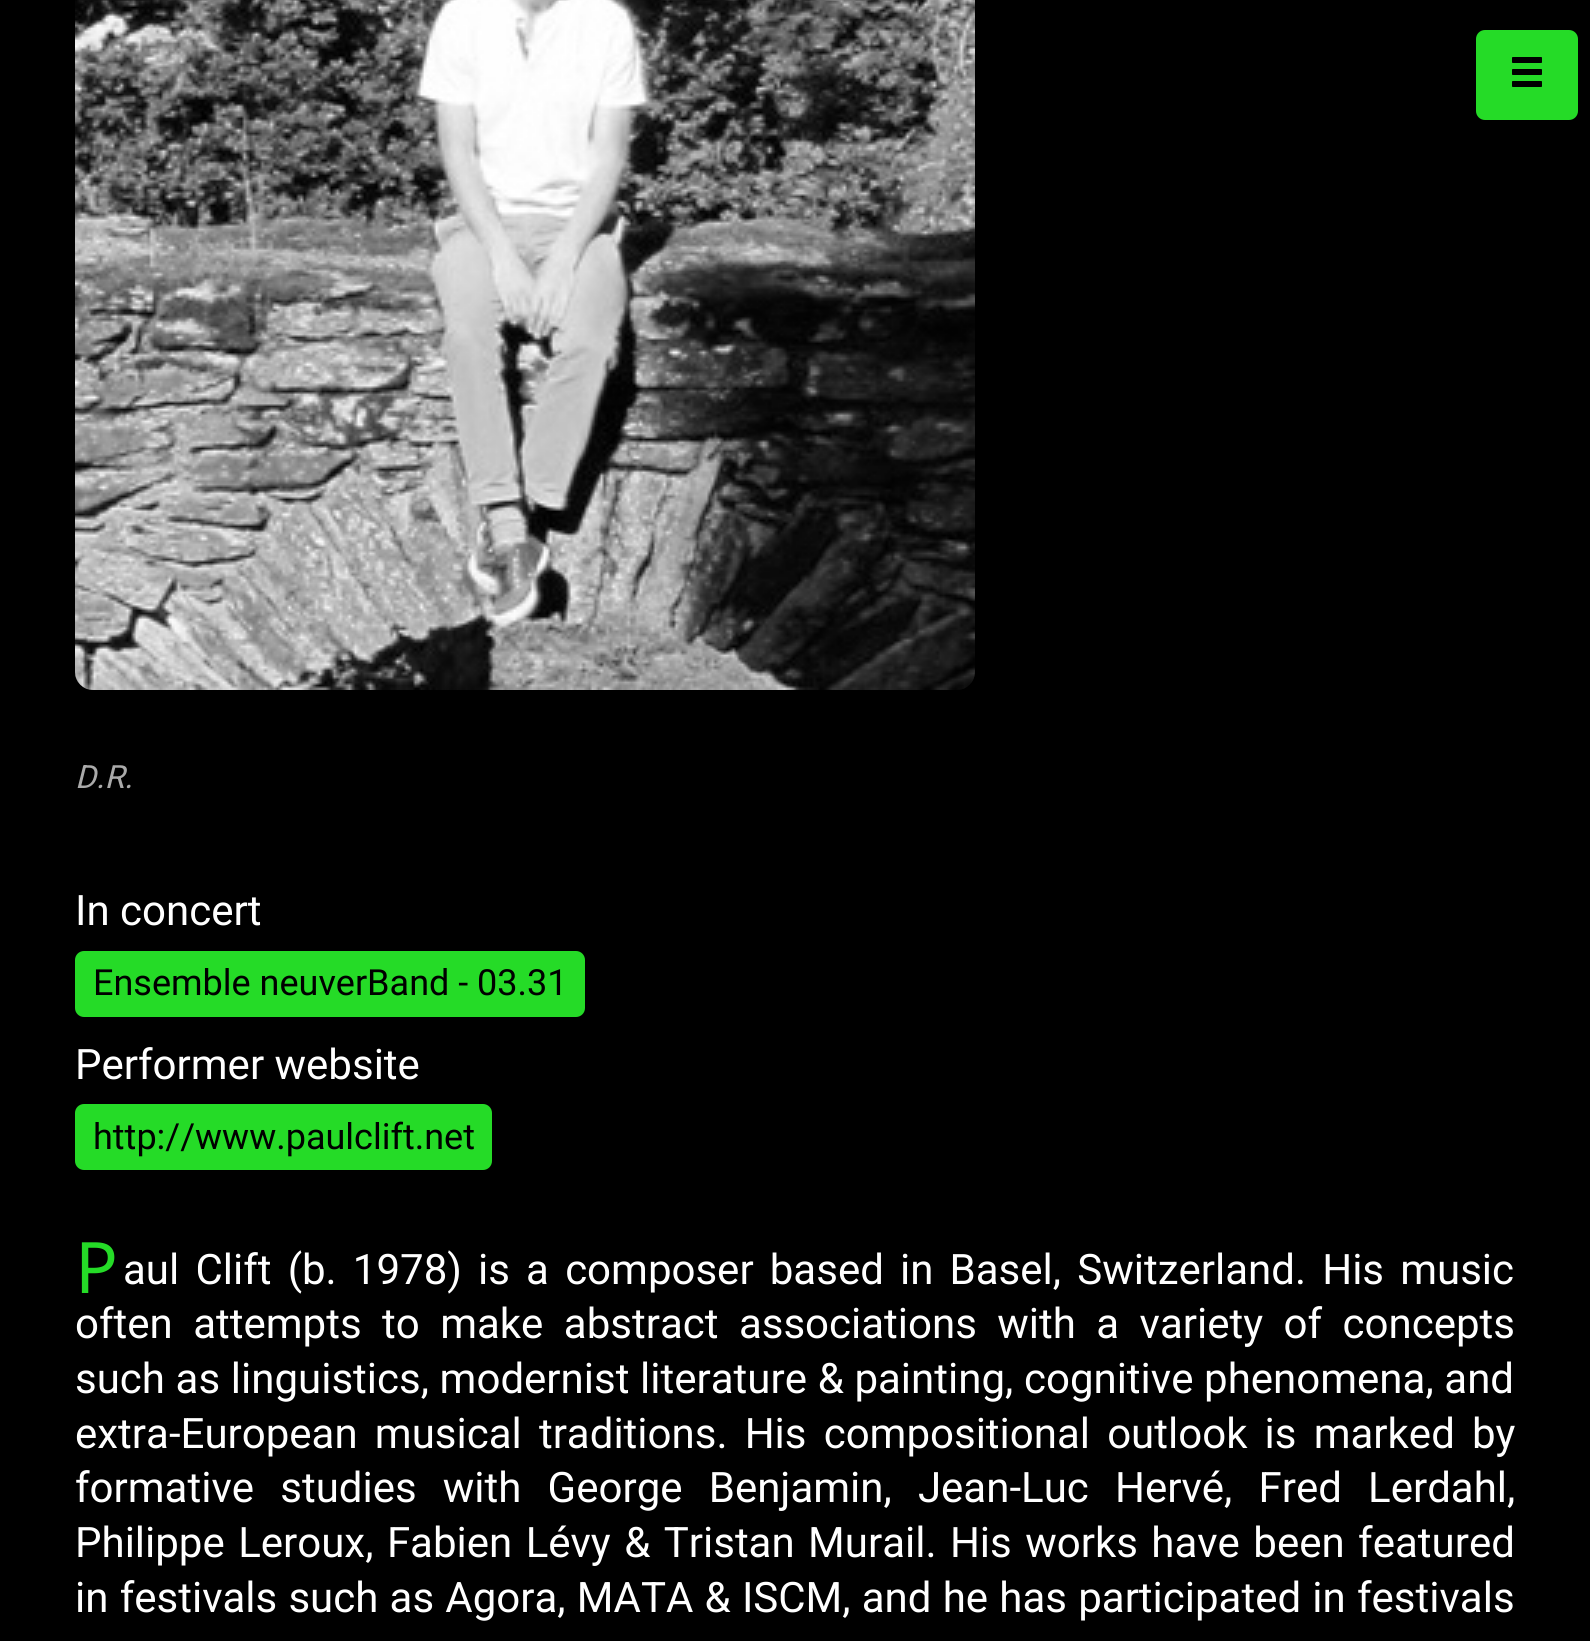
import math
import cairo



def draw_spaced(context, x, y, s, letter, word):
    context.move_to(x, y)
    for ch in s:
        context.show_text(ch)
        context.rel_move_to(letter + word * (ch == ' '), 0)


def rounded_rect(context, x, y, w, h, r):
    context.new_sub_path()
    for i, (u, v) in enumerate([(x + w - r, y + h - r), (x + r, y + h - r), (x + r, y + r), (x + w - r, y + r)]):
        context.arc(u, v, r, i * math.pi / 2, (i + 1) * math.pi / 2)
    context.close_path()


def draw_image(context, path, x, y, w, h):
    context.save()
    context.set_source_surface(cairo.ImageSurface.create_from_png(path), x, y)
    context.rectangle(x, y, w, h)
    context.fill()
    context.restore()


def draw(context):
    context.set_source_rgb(0, 0, 0)
    context.paint()
    context.set_source_rgb(37 / 255, 219 / 255, 39 / 255)
    rounded_rect(context, 1477.5, 31.5, 99, 87, 7.5)
    context.fill_preserve()
    context.set_line_width(3)
    context.stroke()
    draw_image(context, "images/1.png", 1512, 57, 30, 30)
    draw_image(context, "images/2.png", 75, 0, 900, 690)
    rounded_rect(context, 76.5, 952.5, 507, 63, 7.5)
    context.fill_preserve()
    context.stroke()
    rounded_rect(context, 76.5, 1105.5, 414, 63, 7.5)
    context.fill_preserve()
    context.stroke()
    context.select_font_face("Roboto", cairo.FontSlant.ITALIC)
    context.set_font_size(32)
    context.set_source_rgb(170 / 255, 170 / 255, 170 / 255)
    context.move_to(75, 788)
    context.show_text("D.R.")
    context.select_font_face("Roboto")
    context.set_font_size(42)
    context.set_source_rgb(1, 1, 1)
    context.move_to(75, 925)
    context.show_text("In concert")
    context.set_font_size(36)
    context.set_source_rgb(0, 0, 0)
    context.move_to(93, 995)
    context.show_text("Ensemble neuverBand - 03.31")
    context.set_font_size(42)
    context.set_source_rgb(1, 1, 1)
    context.move_to(75, 1079)
    context.show_text("Performer website")
    context.set_font_size(36)
    context.set_source_rgb(0, 0, 0)
    context.move_to(93, 1149)
    context.show_text("http://www.paulclift.net")
    context.select_font_face("Noto Sans")
    context.set_font_size(71)
    context.set_source_rgb(37 / 255, 219 / 255, 39 / 255)
    context.move_to(75, 1293)
    context.show_text("P")
    context.select_font_face("Roboto")
    context.set_font_size(42)
    context.set_source_rgb(1, 1, 1)
    draw_spaced(context, 123, 1284, "aul Clift (b. 1978) is a composer based in Basel, Switzerland. His music", 0, 5.75)
    draw_spaced(context, 75, 1338, "often attempts to make abstract associations with a variety of concepts", 0, 10)
    draw_spaced(context, 75, 1393, "such as linguistics, modernist literature & painting, cognitive phenomena, and", 0, 0.25)
    draw_spaced(context, 75, 1448, "extra-European musical traditions. His compositional outlook is marked by", 0, 6.75)
    draw_spaced(context, 75, 1502, "formative studies with George Benjamin, Jean-Luc Hervé, Fred Lerdahl,", 0, 15.75)
    draw_spaced(context, 75, 1557, "Philippe Leroux, Fabien Lévy & Tristan Murail. His works have been featured", 0, 3)
    draw_spaced(context, 75, 1612, "in festivals such as Agora, MATA & ISCM, and he has participated in festivals", 0, 0.8)


surface = cairo.ImageSurface(cairo.Format.RGB24, 1590, 1641)
context = cairo.Context(surface)
options = cairo.FontOptions()
options.set_hint_metrics(cairo.HintMetrics.OFF)
options.set_hint_style(cairo.HintStyle.NONE)
context.set_font_options(options)
context.set_miter_limit(4)
draw(context)
surface.write_to_png("out.png")
